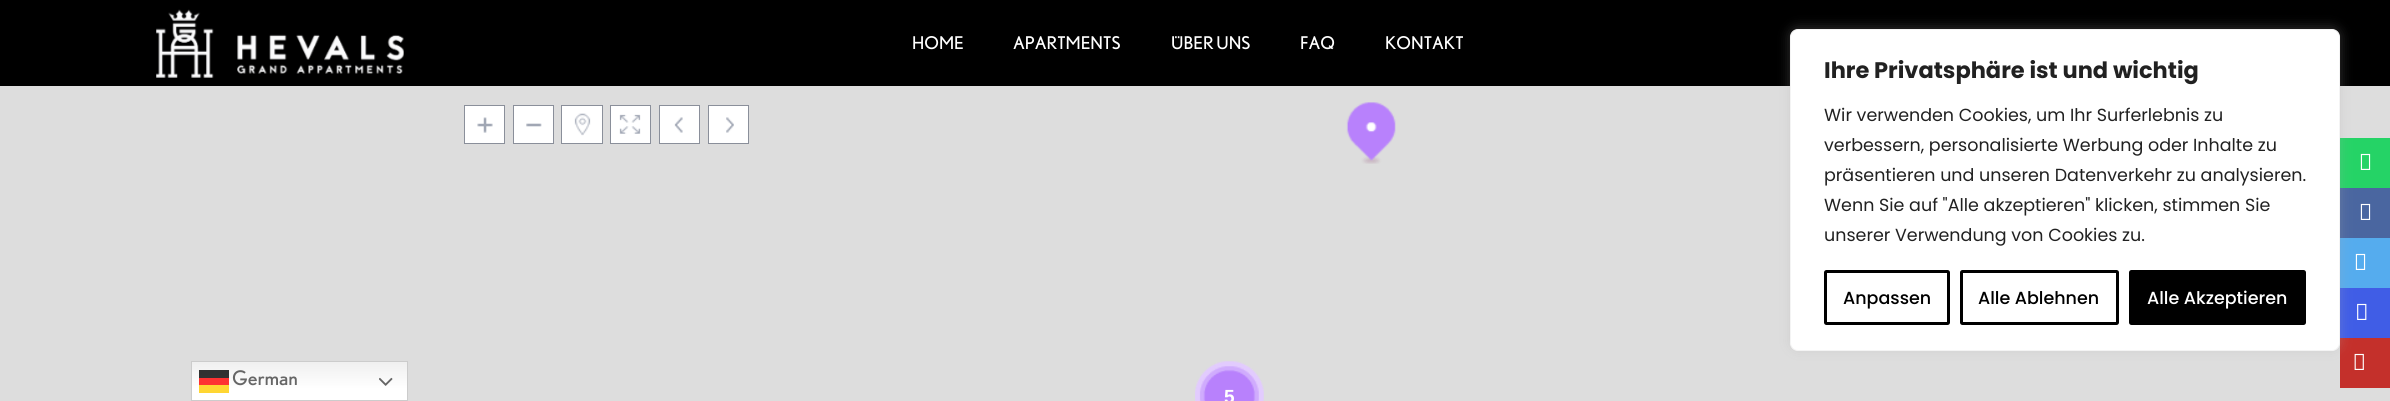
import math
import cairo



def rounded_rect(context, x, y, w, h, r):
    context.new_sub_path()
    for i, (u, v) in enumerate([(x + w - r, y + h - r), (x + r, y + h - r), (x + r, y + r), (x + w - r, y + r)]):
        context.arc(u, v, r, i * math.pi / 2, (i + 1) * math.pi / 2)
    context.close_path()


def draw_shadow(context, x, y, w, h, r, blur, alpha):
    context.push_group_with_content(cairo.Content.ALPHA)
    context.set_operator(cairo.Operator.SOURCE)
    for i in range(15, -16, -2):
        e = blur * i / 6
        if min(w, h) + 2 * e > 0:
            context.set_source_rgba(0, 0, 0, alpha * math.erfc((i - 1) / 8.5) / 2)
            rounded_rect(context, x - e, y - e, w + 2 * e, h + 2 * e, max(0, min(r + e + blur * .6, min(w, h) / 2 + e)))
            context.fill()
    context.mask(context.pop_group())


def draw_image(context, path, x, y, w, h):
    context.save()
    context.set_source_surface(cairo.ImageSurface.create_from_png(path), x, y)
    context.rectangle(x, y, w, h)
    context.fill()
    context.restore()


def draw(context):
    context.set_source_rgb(221 / 255, 221 / 255, 221 / 255)
    context.paint()
    gradient = cairo.LinearGradient(299, 361, 299, 401)
    gradient.add_color_stop_rgba(0, 239 / 255, 239 / 255, 239 / 255, 1)
    gradient.add_color_stop_rgba(0.7, 1, 1, 1, 1)
    context.set_source(gradient)
    context.rectangle(192, 362, 215, 38)
    context.fill()
    gradient = cairo.LinearGradient(299, 361, 299, 401)
    gradient.add_color_stop_rgba(0, 252 / 255, 48 / 255, 48 / 255, 1)
    gradient.add_color_stop_rgba(0.7, 1, 51 / 255, 51 / 255, 1)
    context.set_source(gradient)
    context.rectangle(199, 378, 30, 7)
    context.fill()
    gradient = cairo.LinearGradient(299, 361, 299, 401)
    gradient.add_color_stop_rgba(0, 48 / 255, 48 / 255, 48 / 255, 1)
    gradient.add_color_stop_rgba(0.7, 51 / 255, 51 / 255, 51 / 255, 1)
    context.set_source(gradient)
    context.rectangle(199, 370, 30, 8)
    context.fill()
    context.rectangle(191.5, 361.5, 216, 39)
    context.set_source_rgb(204 / 255, 204 / 255, 204 / 255)
    context.set_line_width(1)
    context.stroke()
    draw_image(context, "images/1.png", 379, 377, 14, 9)
    context.set_source_rgb(1, 214 / 255, 51 / 255)
    context.rectangle(199, 385, 30, 8)
    context.fill()
    context.set_source_rgb(0, 0, 0)
    context.rectangle(0, 0, 2390, 86)
    context.fill()
    draw_image(context, "images/2.png", 156, 9, 248, 69)
    context.set_source_rgb(1, 1, 1)
    context.rectangle(465, 106, 39, 37)
    context.fill()
    draw_image(context, "images/3.png", 477, 117, 16, 16)
    context.rectangle(464.5, 105.5, 40, 38)
    context.set_source_rgb(138 / 255, 143 / 255, 154 / 255)
    context.stroke()
    context.set_source_rgb(1, 1, 1)
    context.rectangle(514, 106, 39, 37)
    context.fill()
    draw_image(context, "images/4.png", 526, 123, 16, 4)
    context.rectangle(513.5, 105.5, 40, 38)
    context.set_source_rgb(138 / 255, 143 / 255, 154 / 255)
    context.stroke()
    context.set_source_rgb(1, 1, 1)
    context.rectangle(562, 106, 40, 37)
    context.fill()
    draw_image(context, "images/5.png", 574, 113, 17, 23)
    context.rectangle(561.5, 105.5, 41, 38)
    context.set_source_rgb(138 / 255, 143 / 255, 154 / 255)
    context.stroke()
    context.set_source_rgb(1, 1, 1)
    context.rectangle(611, 106, 39, 37)
    context.fill()
    draw_image(context, "images/6.png", 619, 114, 22, 20)
    context.rectangle(610.5, 105.5, 40, 38)
    context.set_source_rgb(138 / 255, 143 / 255, 154 / 255)
    context.stroke()
    context.set_source_rgb(1, 1, 1)
    context.rectangle(660, 106, 39, 37)
    context.fill()
    draw_image(context, "images/7.png", 674, 117, 9, 16)
    context.rectangle(659.5, 105.5, 40, 38)
    context.set_source_rgb(138 / 255, 143 / 255, 154 / 255)
    context.stroke()
    context.set_source_rgb(1, 1, 1)
    context.rectangle(709, 106, 39, 37)
    context.fill()
    draw_image(context, "images/8.png", 726, 117, 8, 16)
    context.rectangle(708.5, 105.5, 40, 38)
    context.set_source_rgb(138 / 255, 143 / 255, 154 / 255)
    context.stroke()
    draw_image(context, "images/9.png", 1346, 102, 50, 62)
    draw_image(context, "images/10.png", 1195, 361, 69, 40)
    context.set_source_rgb(37 / 255, 211 / 255, 102 / 255)
    context.rectangle(2340, 138, 50, 50)
    context.fill()
    context.set_source_rgb(74 / 255, 102 / 255, 160 / 255)
    context.rectangle(2340, 188, 50, 50)
    context.fill()
    context.set_source_rgb(85 / 255, 172 / 255, 238 / 255)
    context.rectangle(2340, 238, 50, 50)
    context.fill()
    draw_image(context, "images/13.png", 2355, 253, 11, 17)
    context.set_source_rgb(64 / 255, 93 / 255, 230 / 255)
    context.rectangle(2340, 288, 50, 50)
    context.fill()
    draw_image(context, "images/14.png", 2357, 303, 10, 17)
    context.set_source_rgb(196 / 255, 48 / 255, 43 / 255)
    context.rectangle(2340, 338, 50, 50)
    context.fill()
    draw_image(context, "images/15.png", 2354, 353, 10, 17)
    context.set_source_rgb(172 / 255, 171 / 255, 171 / 255)
    draw_shadow(context, 1790, 28, 550, 322, 8, 6, 0.3)
    context.set_source_rgb(1, 1, 1)
    rounded_rect(context, 1790.5, 29.5, 549, 321, 7.5)
    context.fill_preserve()
    context.set_source_rgb(244 / 255, 244 / 255, 244 / 255)
    context.stroke()
    rounded_rect(context, 1825.5, 271.5, 123, 52, 1)
    context.set_source_rgb(0, 0, 0)
    context.set_line_width(3)
    context.stroke()
    rounded_rect(context, 1961.5, 271.5, 156, 52, 1)
    context.stroke()
    rounded_rect(context, 2130.5, 271.5, 174, 52, 1)
    context.fill_preserve()
    context.stroke()
    draw_image(context, "images/11.png", 2360, 153, 11, 17)
    draw_image(context, "images/12.png", 2360, 203, 11, 17)
    context.select_font_face("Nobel")
    context.set_font_size(20)
    context.set_source_rgb(102 / 255, 102 / 255, 102 / 255)
    context.move_to(232, 385)
    context.show_text("German")
    context.set_font_size(17.5)
    context.set_source_rgb(1, 1, 1)
    context.move_to(912, 49)
    context.show_text("HOME")
    context.move_to(1013, 49)
    context.show_text("APARTMENTS")
    context.move_to(1171, 49)
    context.show_text("ÜBER UNS")
    context.move_to(1300, 49)
    context.show_text("FAQ")
    context.move_to(1385, 49)
    context.show_text("KONTAKT")
    context.select_font_face("Liberation Sans", cairo.FontSlant.NORMAL, cairo.FontWeight.BOLD)
    context.set_font_size(19)
    context.move_to(1224, 403)
    context.show_text("5")
    context.select_font_face("Poppins", cairo.FontSlant.NORMAL, cairo.FontWeight.BOLD)
    context.set_font_size(22.5)
    context.set_source_rgb(33 / 255, 33 / 255, 33 / 255)
    context.move_to(1824, 78)
    context.show_text("Ihre Privatsphäre ist und wichtig")
    context.select_font_face("Poppins")
    context.set_font_size(17.5)
    context.move_to(1824, 121)
    context.show_text("Wir verwenden Cookies, um Ihr Surferlebnis zu")
    context.move_to(1824, 151)
    context.show_text("verbessern, personalisierte Werbung oder Inhalte zu")
    context.move_to(1824, 181)
    context.show_text("präsentieren und unseren Datenverkehr zu analysieren.")
    context.move_to(1824, 211)
    context.show_text("Wenn Sie auf \"Alle akzeptieren\" klicken, stimmen Sie")
    context.move_to(1824, 241)
    context.show_text("unserer Verwendung von Cookies zu.")
    context.select_font_face("Poppins Medium")
    context.set_source_rgb(0, 0, 0)
    context.move_to(1843, 304)
    context.show_text("Anpassen")
    context.move_to(1978, 304)
    context.show_text("Alle Ablehnen")
    context.set_source_rgb(1, 1, 1)
    context.move_to(2147, 304)
    context.show_text("Alle Akzeptieren")


surface = cairo.ImageSurface(cairo.Format.RGB24, 2390, 401)
context = cairo.Context(surface)
options = cairo.FontOptions()
options.set_hint_metrics(cairo.HintMetrics.OFF)
options.set_hint_style(cairo.HintStyle.NONE)
context.set_font_options(options)
context.set_miter_limit(4)
draw(context)
surface.write_to_png("out.png")
